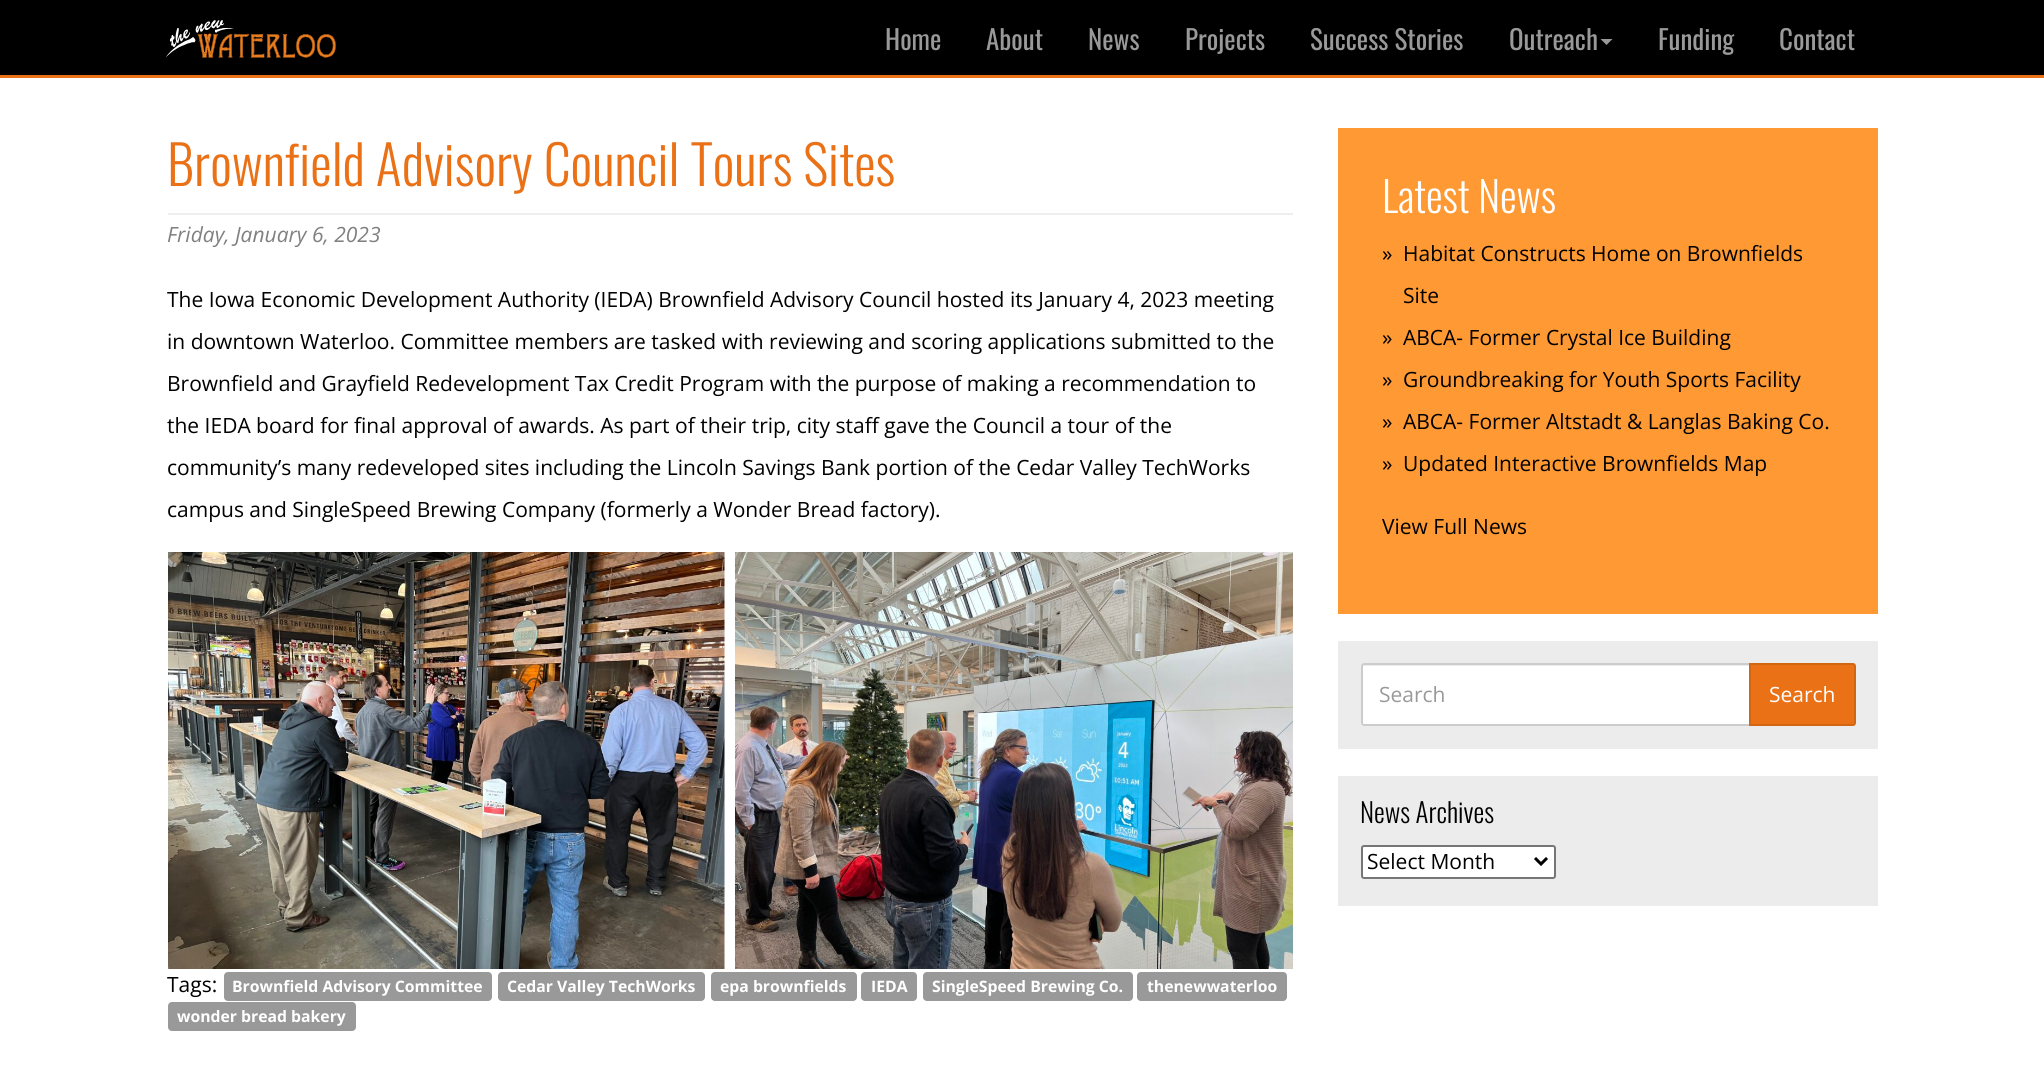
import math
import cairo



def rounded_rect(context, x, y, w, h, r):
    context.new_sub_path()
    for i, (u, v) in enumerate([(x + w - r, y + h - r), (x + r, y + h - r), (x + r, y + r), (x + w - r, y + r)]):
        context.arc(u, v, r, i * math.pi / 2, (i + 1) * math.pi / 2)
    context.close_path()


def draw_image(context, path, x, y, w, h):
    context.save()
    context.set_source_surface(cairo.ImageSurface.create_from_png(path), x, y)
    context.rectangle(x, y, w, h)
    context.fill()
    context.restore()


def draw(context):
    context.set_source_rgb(1, 1, 1)
    context.paint()
    context.set_source_rgb(0, 0, 0)
    context.rectangle(0, 0, 2044, 75)
    context.fill()
    context.set_source_rgb(234 / 255, 113 / 255, 22 / 255)
    context.rectangle(0, 75, 2044, 3)
    context.fill()
    draw_image(context, "images/1.png", 165, 20, 171, 38)
    context.set_source_rgb(153 / 255, 153 / 255, 153 / 255)
    context.new_path()
    context.move_to(1600.5, 39)
    context.line_to(1612.5, 39)
    context.line_to(1606.5, 45)
    context.close_path()
    context.fill()
    context.set_source_rgb(238 / 255, 238 / 255, 238 / 255)
    context.rectangle(168, 213, 1125, 2)
    context.fill()
    draw_image(context, "images/2.png", 168, 552, 557, 417)
    draw_image(context, "images/3.png", 735, 552, 558, 417)
    context.set_source_rgb(153 / 255, 153 / 255, 153 / 255)
    rounded_rect(context, 224, 972, 268, 29, 4)
    context.fill()
    rounded_rect(context, 498, 972, 207, 29, 4)
    context.fill()
    rounded_rect(context, 711, 972, 146, 29, 4)
    context.fill()
    rounded_rect(context, 861, 972, 56, 29, 4)
    context.fill()
    rounded_rect(context, 923, 972, 210, 29, 4)
    context.fill()
    rounded_rect(context, 1137, 972, 150, 29, 4)
    context.fill()
    rounded_rect(context, 168, 1002, 188, 29, 4)
    context.fill()
    context.set_source_rgb(1, 153 / 255, 51 / 255)
    context.rectangle(1338, 128, 540, 486)
    context.fill()
    context.set_source_rgb(236 / 255, 236 / 255, 236 / 255)
    context.rectangle(1338, 641, 540, 108)
    context.fill()
    context.set_source_rgb(1, 1, 1)
    context.new_path()
    context.move_to(1364, 663)
    context.line_to(1751, 663)
    context.line_to(1751, 726)
    context.line_to(1364, 726)
    context.curve_to(1362.5, 726, 1361, 724.5, 1361, 723)
    context.line_to(1361, 666)
    context.curve_to(1361, 664.5, 1362.5, 663, 1364, 663)
    context.close_path()
    context.fill()
    context.set_source_rgb(236 / 255, 236 / 255, 236 / 255)
    context.new_path()
    context.move_to(1364, 666)
    context.line_to(1749, 666)
    context.line_to(1749, 665)
    context.line_to(1364, 665)
    context.line_to(1362, 666)
    context.line_to(1362, 668)
    context.curve_to(1362, 667, 1363, 666, 1364, 666)
    context.close_path()
    context.fill()
    context.new_path()
    context.move_to(1364, 664)
    context.line_to(1750, 664)
    context.line_to(1750, 725)
    context.line_to(1364, 725)
    context.curve_to(1363, 725, 1362, 724, 1362, 723)
    context.line_to(1362, 666)
    context.curve_to(1362, 665, 1363, 664, 1364, 664)
    context.close_path()
    context.set_source_rgb(204 / 255, 204 / 255, 204 / 255)
    context.stroke()
    context.set_source_rgb(234 / 255, 113 / 255, 22 / 255)
    context.new_path()
    context.move_to(1750, 664)
    context.line_to(1853, 664)
    context.curve_to(1854, 664, 1855, 665, 1855, 666)
    context.line_to(1855, 723)
    context.curve_to(1855, 724, 1854, 725, 1853, 725)
    context.line_to(1750, 725)
    context.close_path()
    context.fill_preserve()
    context.set_source_rgb(211 / 255, 102 / 255, 19 / 255)
    context.stroke()
    context.set_source_rgb(236 / 255, 236 / 255, 236 / 255)
    context.rectangle(1338, 776, 540, 130)
    context.fill()
    context.set_source_rgb(1, 1, 1)
    rounded_rect(context, 1362, 846, 193, 32, 2)
    context.fill_preserve()
    context.set_source_rgb(118 / 255, 118 / 255, 118 / 255)
    context.stroke()
    context.new_path()
    context.move_to(1535, 858)
    context.line_to(1541, 864)
    context.line_to(1547, 858)
    context.set_source_rgb(0, 0, 0)
    context.set_line_width(3)
    context.stroke()
    context.select_font_face("Oswald")
    context.set_font_size(27)
    context.set_source_rgb(153 / 255, 153 / 255, 153 / 255)
    context.move_to(885, 50)
    context.show_text("Home")
    context.move_to(986, 50)
    context.show_text("About")
    context.move_to(1088, 50)
    context.show_text("News")
    context.move_to(1185, 50)
    context.show_text("Projects")
    context.move_to(1310, 50)
    context.show_text("Success Stories")
    context.move_to(1509, 50)
    context.show_text("Outreach")
    context.move_to(1658, 50)
    context.show_text("Funding")
    context.move_to(1779, 50)
    context.show_text("Contact")
    context.select_font_face("Oswald Light")
    context.set_font_size(54)
    context.set_source_rgb(234 / 255, 113 / 255, 22 / 255)
    context.move_to(167, 186)
    context.show_text("Brownfield Advisory Council Tours Sites")
    context.select_font_face("Open Sans", cairo.FontSlant.ITALIC)
    context.set_font_size(21)
    context.set_source_rgb(128 / 255, 128 / 255, 128 / 255)
    context.move_to(167, 242)
    context.show_text("Friday, January 6, 2023")
    context.select_font_face("Open Sans")
    context.set_source_rgb(0, 0, 0)
    context.move_to(167, 307)
    context.show_text("The Iowa Economic Development Authority (IEDA) Brownfield Advisory Council hosted its January 4, 2023 meeting")
    context.move_to(167, 349)
    context.show_text("in downtown Waterloo. Committee members are tasked with reviewing and scoring applications submitted to the")
    context.move_to(167, 391)
    context.show_text("Brownfield and Grayfield Redevelopment Tax Credit Program with the purpose of making a recommendation to")
    context.move_to(167, 433)
    context.show_text("the IEDA board for final approval of awards. As part of their trip, city staff gave the Council a tour of the")
    context.move_to(167, 475)
    context.show_text("community’s many redeveloped sites including the Lincoln Savings Bank portion of the Cedar Valley TechWorks")
    context.move_to(167, 517)
    context.show_text("campus and SingleSpeed Brewing Company (formerly a Wonder Bread factory).")
    context.move_to(167, 992)
    context.show_text("Tags:")
    context.select_font_face("Open Sans", cairo.FontSlant.NORMAL, cairo.FontWeight.BOLD)
    context.set_font_size(15.75)
    context.set_source_rgb(1, 1, 1)
    context.move_to(232, 992)
    context.show_text("Brownfield Advisory Committee")
    context.move_to(507, 992)
    context.show_text("Cedar Valley TechWorks")
    context.move_to(720, 992)
    context.show_text("epa brownfields")
    context.move_to(871, 992)
    context.show_text("IEDA")
    context.move_to(932, 992)
    context.show_text("SingleSpeed Brewing Co.")
    context.move_to(1147, 992)
    context.show_text("thenewwaterloo")
    context.move_to(177, 1022)
    context.show_text("wonder bread bakery")
    context.select_font_face("Oswald Light")
    context.set_font_size(42)
    context.move_to(1382, 213)
    context.show_text("Latest News")
    context.select_font_face("Open Sans")
    context.set_font_size(21)
    context.set_source_rgb(0, 0, 0)
    context.move_to(1382, 261)
    context.show_text("»")
    context.move_to(1403, 261)
    context.show_text("Habitat Constructs Home on Brownfields")
    context.move_to(1403, 303)
    context.show_text("Site")
    context.move_to(1382, 345)
    context.show_text("»")
    context.move_to(1403, 345)
    context.show_text("ABCA- Former Crystal Ice Building")
    context.move_to(1382, 387)
    context.show_text("»")
    context.move_to(1403, 387)
    context.show_text("Groundbreaking for Youth Sports Facility")
    context.move_to(1382, 429)
    context.show_text("»")
    context.move_to(1403, 429)
    context.show_text("ABCA- Former Altstadt & Langlas Baking Co.")
    context.move_to(1382, 471)
    context.show_text("»")
    context.move_to(1403, 471)
    context.show_text("Updated Interactive Brownfields Map")
    context.move_to(1382, 534)
    context.show_text("View Full News")
    context.set_source_rgb(153 / 255, 153 / 255, 153 / 255)
    context.move_to(1379, 702)
    context.show_text("Search")
    context.set_source_rgb(1, 1, 1)
    context.move_to(1769, 702)
    context.show_text("Search")
    context.select_font_face("Oswald Light")
    context.set_font_size(27)
    context.set_source_rgb(0, 0, 0)
    context.move_to(1360, 823)
    context.show_text("News Archives")
    context.select_font_face("Open Sans")
    context.set_font_size(21)
    context.move_to(1367, 869)
    context.show_text("Select Month")


surface = cairo.ImageSurface(cairo.Format.RGB24, 2044, 1066)
context = cairo.Context(surface)
options = cairo.FontOptions()
options.set_hint_metrics(cairo.HintMetrics.OFF)
options.set_hint_style(cairo.HintStyle.NONE)
context.set_font_options(options)
context.set_miter_limit(4)
draw(context)
surface.write_to_png("out.png")
